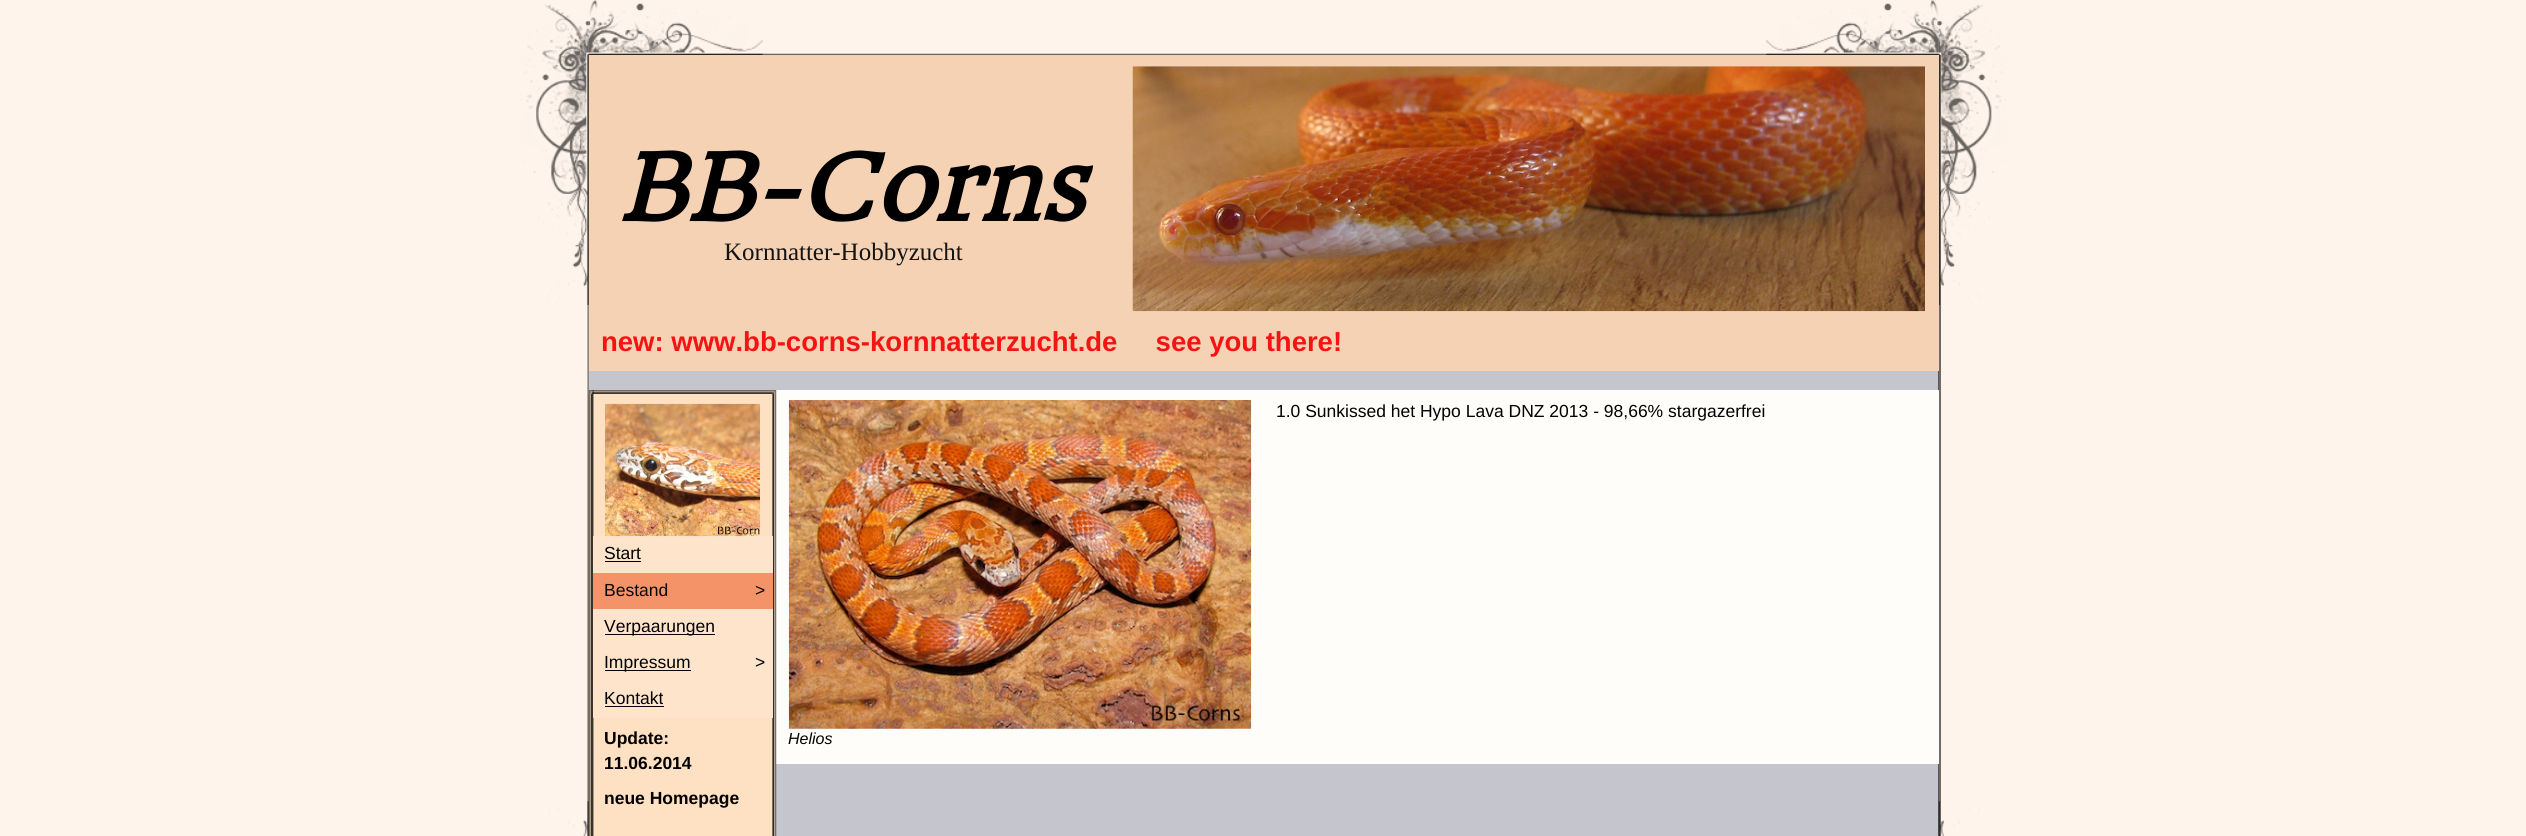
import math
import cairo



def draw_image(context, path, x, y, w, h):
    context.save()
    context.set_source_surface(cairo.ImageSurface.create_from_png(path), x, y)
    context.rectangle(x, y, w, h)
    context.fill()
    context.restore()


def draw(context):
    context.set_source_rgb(1, 244 / 255, 235 / 255)
    context.paint()
    context.set_source_rgb(112 / 255, 107 / 255, 103 / 255)
    context.rectangle(1939, 55, 2, 781)
    context.fill()
    draw_image(context, "images/2.png", 588, 53, 1351, 2)
    draw_image(context, "images/3.png", 588, 0, 175, 55)
    draw_image(context, "images/1.png", 527, 4, 62, 51)
    draw_image(context, "images/4.png", 1766, 0, 173, 55)
    draw_image(context, "images/5.png", 1938, 4, 62, 51)
    draw_image(context, "images/6.png", 587, 55, 2, 781)
    draw_image(context, "images/7.png", 520, 55, 69, 250)
    draw_image(context, "images/8.png", 548, 801, 41, 35)
    context.set_source_rgb(197 / 255, 197 / 255, 206 / 255)
    context.rectangle(589, 371, 1349, 465)
    context.fill()
    context.set_source_rgb(87 / 255, 87 / 255, 91 / 255)
    context.rectangle(1938, 371, 1, 465)
    context.fill()
    draw_image(context, "images/9.png", 1939, 55, 68, 250)
    draw_image(context, "images/10.png", 1938, 801, 42, 35)
    context.set_source_rgb(244 / 255, 210 / 255, 179 / 255)
    context.rectangle(589, 55, 1350, 316)
    context.fill()
    draw_image(context, "images/11.png", 1132, 66, 793, 246)
    context.set_source_rgb(254 / 255, 224 / 255, 195 / 255)
    context.rectangle(589, 390, 187, 446)
    context.fill()
    draw_image(context, "images/12.png", 588, 390, 6, 4)
    context.set_source_rgb(1, 253 / 255, 250 / 255)
    context.rectangle(776, 390, 1163, 374)
    context.fill()
    draw_image(context, "images/13.png", 772, 390, 5, 4)
    draw_image(context, "images/14.png", 592, 390, 181, 4)
    draw_image(context, "images/15.png", 588, 393, 6, 443)
    draw_image(context, "images/16.png", 772, 393, 5, 443)
    context.set_source_rgb(1, 228 / 255, 204 / 255)
    context.rectangle(593, 536, 180, 182)
    context.fill()
    draw_image(context, "images/17.png", 605, 403, 155, 134)
    context.set_source_rgb(0, 0, 0)
    context.rectangle(605, 561, 36, 1)
    context.fill()
    context.set_source_rgb(244 / 255, 147 / 255, 103 / 255)
    context.rectangle(593, 573, 180, 36)
    context.fill()
    context.set_source_rgb(0, 0, 0)
    context.rectangle(605, 634, 110, 1)
    context.fill()
    context.rectangle(605, 670, 86, 1)
    context.fill()
    context.rectangle(605, 706, 59, 1)
    context.fill()
    draw_image(context, "images/18.png", 788, 400, 464, 329)
    context.select_font_face("HeadlandOne", cairo.FontSlant.ITALIC, cairo.FontWeight.BOLD)
    context.set_font_size(90)
    context.move_to(618, 221)
    context.show_text("BB-Corns")
    context.select_font_face("Liberation Serif")
    context.set_font_size(25)
    context.set_source_rgb(20 / 255, 20 / 255, 20 / 255)
    context.move_to(724, 260)
    context.show_text("Kornnatter-Hobbyzucht")
    context.select_font_face("Liberation Sans", cairo.FontSlant.NORMAL, cairo.FontWeight.BOLD)
    context.set_font_size(27.5)
    context.set_source_rgb(246 / 255, 19 / 255, 19 / 255)
    context.move_to(601, 351)
    context.show_text("new: www.bb-corns-kornnatterzucht.de     see you there!")
    context.select_font_face("Liberation Sans")
    context.set_font_size(17.5)
    context.set_source_rgb(0, 0, 0)
    context.move_to(604, 559)
    context.show_text("Start")
    context.set_source_rgb(8 / 255, 7 / 255, 7 / 255)
    context.move_to(604, 596)
    context.show_text("Bestand")
    context.move_to(755, 596)
    context.show_text(">")
    context.set_source_rgb(0, 0, 0)
    context.move_to(604, 632)
    context.show_text("Verpaarungen")
    context.move_to(604, 668)
    context.show_text("Impressum")
    context.move_to(755, 668)
    context.show_text(">")
    context.move_to(604, 704)
    context.show_text("Kontakt")
    context.select_font_face("Liberation Sans", cairo.FontSlant.NORMAL, cairo.FontWeight.BOLD)
    context.move_to(604, 744)
    context.show_text("Update:")
    context.move_to(604, 769)
    context.show_text("11.06.2014")
    context.move_to(604, 804)
    context.show_text("neue Homepage")
    context.select_font_face("Liberation Sans")
    context.move_to(1276, 417)
    context.show_text("1.0 Sunkissed het Hypo Lava DNZ 2013 - 98,66% stargazerfrei")
    context.select_font_face("Liberation Sans", cairo.FontSlant.ITALIC)
    context.set_font_size(16)
    context.move_to(788, 744)
    context.show_text("Helios")


surface = cairo.ImageSurface(cairo.Format.RGB24, 2526, 836)
context = cairo.Context(surface)
options = cairo.FontOptions()
options.set_hint_metrics(cairo.HintMetrics.OFF)
options.set_hint_style(cairo.HintStyle.NONE)
context.set_font_options(options)
context.set_miter_limit(4)
draw(context)
surface.write_to_png("out.png")
